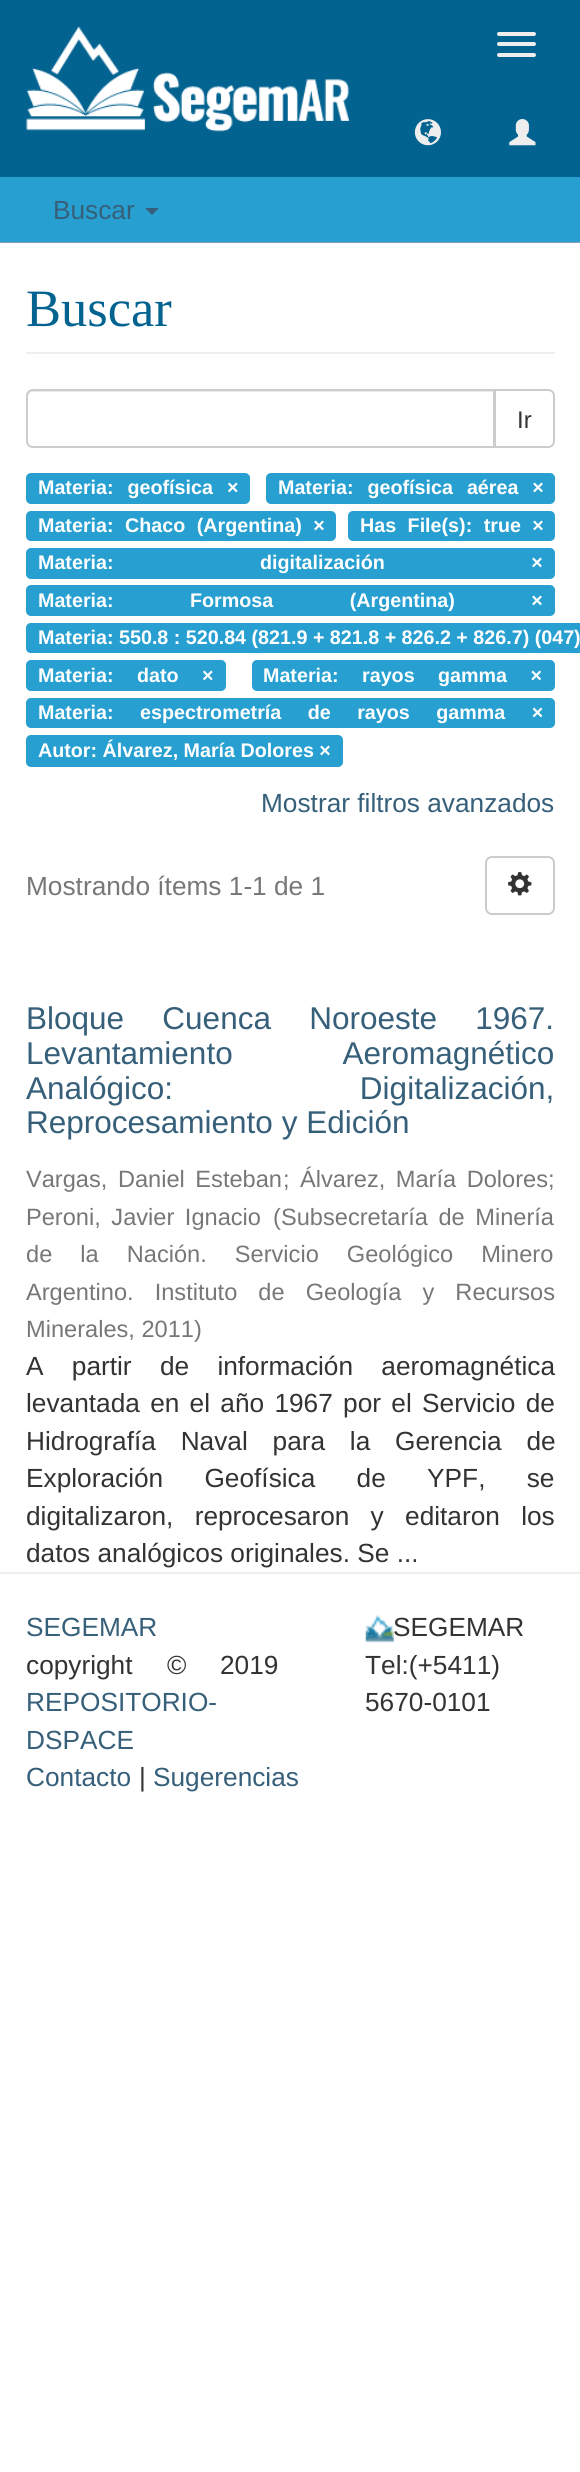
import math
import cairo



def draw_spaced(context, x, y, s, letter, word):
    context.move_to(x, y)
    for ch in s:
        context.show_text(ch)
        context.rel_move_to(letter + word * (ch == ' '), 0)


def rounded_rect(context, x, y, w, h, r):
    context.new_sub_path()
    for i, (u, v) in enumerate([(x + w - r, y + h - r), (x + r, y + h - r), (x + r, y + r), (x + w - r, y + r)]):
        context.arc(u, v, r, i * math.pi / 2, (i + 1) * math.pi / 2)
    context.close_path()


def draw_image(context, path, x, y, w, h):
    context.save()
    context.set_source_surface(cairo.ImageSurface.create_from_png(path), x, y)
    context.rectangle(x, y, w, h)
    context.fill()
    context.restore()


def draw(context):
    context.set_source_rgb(1, 1, 1)
    context.paint()
    context.set_source_rgb(2 / 255, 98 / 255, 144 / 255)
    context.rectangle(0, 0, 580, 177)
    context.fill()
    draw_image(context, "images/1.png", 26, 26, 324, 106)
    context.set_source_rgb(238 / 255, 238 / 255, 238 / 255)
    rounded_rect(context, 497, 32, 39, 4, 2)
    context.fill()
    rounded_rect(context, 497, 42, 39, 4, 2)
    context.fill()
    rounded_rect(context, 497, 53, 39, 4, 2)
    context.fill()
    draw_image(context, "images/2.png", 414, 119, 27, 27)
    draw_image(context, "images/3.png", 509, 119, 27, 27)
    context.set_source_rgb(39 / 255, 160 / 255, 209 / 255)
    context.rectangle(0, 177, 580, 65)
    context.fill()
    context.set_source_rgb(139 / 255, 158 / 255, 178 / 255)
    context.rectangle(0, 242, 580, 1)
    context.fill()
    context.set_source_rgb(54 / 255, 95 / 255, 122 / 255)
    context.new_path()
    context.move_to(145, 208)
    context.line_to(159, 208)
    context.line_to(152, 215)
    context.close_path()
    context.fill()
    context.set_source_rgb(238 / 255, 238 / 255, 238 / 255)
    context.rectangle(26, 352, 529, 2)
    context.fill()
    context.new_path()
    context.move_to(495, 390)
    context.line_to(548, 390)
    context.curve_to(551.5, 390, 554, 392.5, 554, 396)
    context.line_to(554, 441)
    context.curve_to(554, 444.5, 551.5, 447, 548, 447)
    context.line_to(495, 447)
    context.close_path()
    context.set_source_rgb(204 / 255, 204 / 255, 204 / 255)
    context.stroke()
    context.set_source_rgb(1, 1, 1)
    context.new_path()
    context.move_to(33, 389)
    context.line_to(495, 389)
    context.line_to(495, 448)
    context.line_to(33, 448)
    context.curve_to(29, 448, 26, 445, 26, 441)
    context.line_to(26, 396)
    context.curve_to(26, 392, 29, 389, 33, 389)
    context.close_path()
    context.fill()
    context.set_source_rgb(236 / 255, 236 / 255, 236 / 255)
    context.new_path()
    context.move_to(33, 392)
    context.line_to(494, 392)
    context.line_to(494, 390)
    context.line_to(33, 390)
    context.curve_to(30, 390, 28, 392, 28, 395)
    context.line_to(28, 397)
    context.curve_to(28, 394, 30, 392, 33, 392)
    context.close_path()
    context.fill()
    context.new_path()
    context.move_to(33, 390)
    context.line_to(494, 390)
    context.line_to(494, 447)
    context.line_to(33, 447)
    context.curve_to(29.5, 447, 27, 444.5, 27, 441)
    context.line_to(27, 396)
    context.curve_to(27, 392.5, 29.5, 390, 33, 390)
    context.close_path()
    context.set_source_rgb(204 / 255, 204 / 255, 204 / 255)
    context.stroke()
    context.set_source_rgb(39 / 255, 160 / 255, 209 / 255)
    rounded_rect(context, 26, 473, 224, 31, 5)
    context.fill()
    rounded_rect(context, 266, 473, 289, 31, 5)
    context.fill()
    rounded_rect(context, 26, 511, 310, 30, 5)
    context.fill()
    rounded_rect(context, 348, 511, 207, 30, 5)
    context.fill()
    rounded_rect(context, 26, 548, 529, 31, 5)
    context.fill()
    rounded_rect(context, 26, 585, 529, 31, 5)
    context.fill()
    context.new_path()
    context.move_to(31, 623)
    context.line_to(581, 623)
    context.line_to(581, 653)
    context.line_to(31, 653)
    context.curve_to(28, 653, 26, 651, 26, 648)
    context.line_to(26, 628)
    context.curve_to(26, 625, 28, 623, 31, 623)
    context.close_path()
    context.fill()
    rounded_rect(context, 26, 660, 200, 31, 5)
    context.fill()
    rounded_rect(context, 252, 660, 303, 31, 5)
    context.fill()
    rounded_rect(context, 26, 698, 529, 30, 5)
    context.fill()
    rounded_rect(context, 26, 735, 317, 32, 5)
    context.fill()
    rounded_rect(context, 486, 857, 68, 57, 6)
    context.set_source_rgb(204 / 255, 204 / 255, 204 / 255)
    context.stroke()
    draw_image(context, "images/4.png", 508, 872, 24, 24)
    context.set_source_rgb(238 / 255, 238 / 255, 238 / 255)
    context.rectangle(0, 1572, 580, 2)
    context.fill()
    draw_image(context, "images/5.png", 365, 1615, 29, 28)
    context.select_font_face("Liberation Sans")
    context.set_font_size(26.25)
    context.set_source_rgb(54 / 255, 95 / 255, 122 / 255)
    context.move_to(53, 219)
    context.show_text("Buscar")
    context.select_font_face("Liberation Serif")
    context.set_font_size(52.5)
    context.set_source_rgb(2 / 255, 98 / 255, 144 / 255)
    context.move_to(26, 326)
    context.show_text("Buscar")
    context.select_font_face("Liberation Sans")
    context.set_font_size(24)
    context.set_source_rgb(51 / 255, 51 / 255, 51 / 255)
    context.move_to(517, 428)
    context.show_text("Ir")
    context.select_font_face("Liberation Sans", cairo.FontSlant.NORMAL, cairo.FontWeight.BOLD)
    context.set_font_size(19.7)
    context.set_source_rgb(1, 1, 1)
    draw_spaced(context, 38, 494, "Materia: geofísica ×", 0, 8.5)
    draw_spaced(context, 278, 494, "Materia: geofísica aérea ×", 0, 8.5)
    draw_spaced(context, 38, 532, "Materia: Chaco (Argentina) ×", 0, 6)
    draw_spaced(context, 360, 532, "Has File(s): true ×", 0, 6)
    draw_spaced(context, 38, 569, "Materia: digitalización ×", 0, 141)
    draw_spaced(context, 38, 607, "Materia: Formosa (Argentina) ×", 0, 71)
    context.move_to(38, 644)
    context.show_text("Materia: 550.8 : 520.84 (821.9 + 821.8 + 826.2 + 826.7) (047)")
    draw_spaced(context, 38, 682, "Materia: dato ×", 0, 18)
    draw_spaced(context, 263, 682, "Materia: rayos gamma ×", 0, 18)
    draw_spaced(context, 38, 719, "Materia: espectrometría de rayos gamma ×", 0, 21)
    context.move_to(38, 757)
    context.show_text("Autor: Álvarez, María Dolores ×")
    context.select_font_face("Liberation Sans")
    context.set_font_size(26.25)
    context.set_source_rgb(54 / 255, 95 / 255, 122 / 255)
    context.move_to(261, 812)
    context.show_text("Mostrar filtros avanzados")
    context.set_source_rgb(119 / 255, 119 / 255, 119 / 255)
    context.move_to(26, 895)
    context.show_text("Mostrando ítems 1-1 de 1")
    context.set_font_size(31.5)
    context.set_source_rgb(54 / 255, 95 / 255, 122 / 255)
    draw_spaced(context, 26, 1029, "Bloque Cuenca Noroeste 1967.", 0, 29.5)
    draw_spaced(context, 26, 1064, "Levantamiento Aeromagnético", 0, 101)
    draw_spaced(context, 26, 1099, "Analógico: Digitalización,", 0, 178)
    context.move_to(26, 1133)
    context.show_text("Reprocesamiento y Edición")
    context.set_font_size(23.6)
    context.set_source_rgb(119 / 255, 119 / 255, 119 / 255)
    draw_spaced(context, 26, 1187, "Vargas, Daniel Esteban", 0, 4)
    context.move_to(283, 1187)
    context.show_text(";")
    draw_spaced(context, 300, 1187, "Álvarez, María Dolores", 0, 4)
    context.move_to(548, 1187)
    context.show_text(";")
    draw_spaced(context, 26, 1225, "Peroni, Javier Ignacio", 0, 4)
    context.move_to(273, 1225)
    context.show_text("(")
    draw_spaced(context, 281, 1225, "Subsecretaría de Minería", 0, 4)
    draw_spaced(context, 26, 1262, "de la Nación. Servicio Geológico Minero", 0, 21.5)
    draw_spaced(context, 26, 1300, "Argentino. Instituto de Geología y Recursos", 0, 14.5)
    context.move_to(26, 1337)
    context.show_text("Minerales, 2011)")
    context.set_font_size(26.25)
    context.set_source_rgb(51 / 255, 51 / 255, 51 / 255)
    draw_spaced(context, 26, 1375, "A partir de información aeromagnética", 0, 21)
    draw_spaced(context, 26, 1412, "levantada en el año 1967 por el Servicio de", 0, 3)
    draw_spaced(context, 26, 1450, "Hidrografía Naval para la Gerencia de", 0, 17.5)
    draw_spaced(context, 26, 1487, "Exploración Geofísica de YPF, se", 0, 34)
    draw_spaced(context, 26, 1525, "digitalizaron, reprocesaron y editaron los", 0, 14)
    context.move_to(26, 1562)
    context.show_text("datos analógicos originales. Se ...")
    context.set_source_rgb(54 / 255, 95 / 255, 122 / 255)
    context.move_to(26, 1636)
    context.show_text("SEGEMAR")
    context.set_source_rgb(51 / 255, 51 / 255, 51 / 255)
    context.move_to(26, 1674)
    context.show_text("copyright")
    context.move_to(167, 1674)
    context.show_text("©")
    context.move_to(220, 1674)
    context.show_text("2019")
    context.set_source_rgb(54 / 255, 95 / 255, 122 / 255)
    context.move_to(26, 1711)
    context.show_text("REPOSITORIO-")
    context.move_to(26, 1749)
    context.show_text("DSPACE")
    context.move_to(26, 1786)
    context.show_text("Contacto")
    context.set_source_rgb(51 / 255, 51 / 255, 51 / 255)
    context.move_to(139, 1786)
    context.show_text("|")
    context.set_source_rgb(54 / 255, 95 / 255, 122 / 255)
    context.move_to(153, 1786)
    context.show_text("Sugerencias")
    context.set_source_rgb(51 / 255, 51 / 255, 51 / 255)
    context.move_to(393, 1636)
    context.show_text("SEGEMAR")
    context.move_to(365, 1674)
    context.show_text("Tel:(+5411)")
    context.move_to(365, 1711)
    context.show_text("5670-0101")


surface = cairo.ImageSurface(cairo.Format.RGB24, 580, 2472)
context = cairo.Context(surface)
options = cairo.FontOptions()
options.set_hint_metrics(cairo.HintMetrics.OFF)
options.set_hint_style(cairo.HintStyle.NONE)
context.set_font_options(options)
context.set_miter_limit(4)
draw(context)
surface.write_to_png("out.png")
